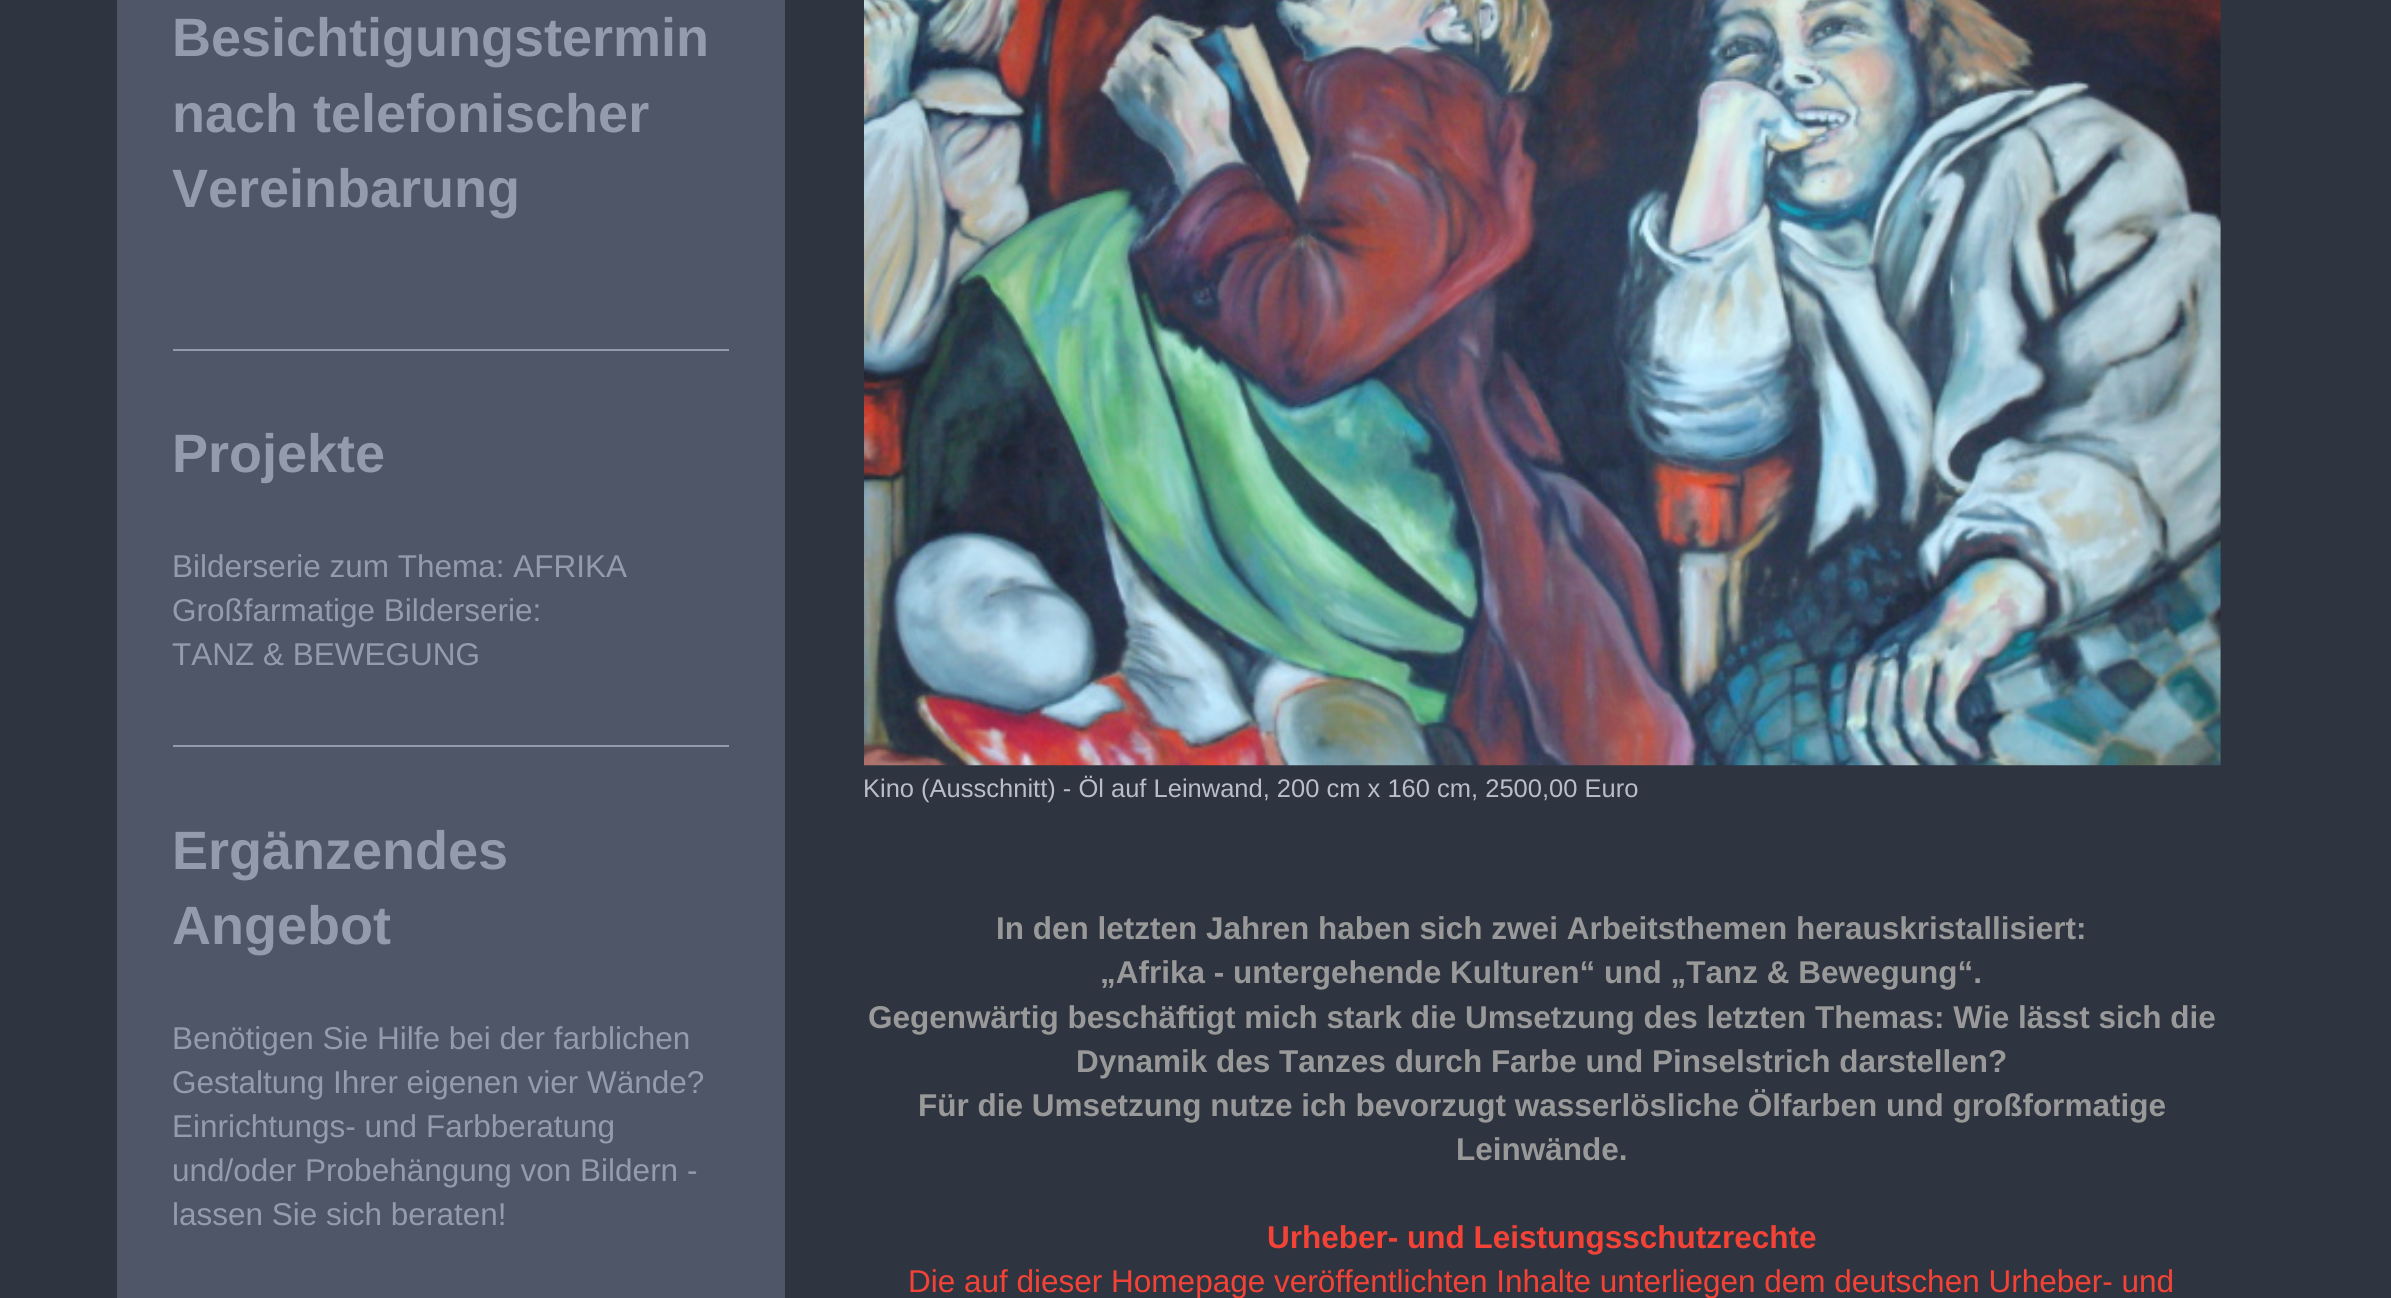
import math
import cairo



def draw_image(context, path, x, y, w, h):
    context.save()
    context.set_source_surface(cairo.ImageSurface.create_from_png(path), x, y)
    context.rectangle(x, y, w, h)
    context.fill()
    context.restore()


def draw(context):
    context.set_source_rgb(46 / 255, 52 / 255, 64 / 255)
    context.paint()
    context.set_source_rgb(78 / 255, 86 / 255, 103 / 255)
    context.rectangle(117, 0, 668, 1298)
    context.fill()
    context.set_source_rgb(147 / 255, 155 / 255, 172 / 255)
    context.rectangle(173, 349, 556, 2)
    context.fill()
    context.rectangle(173, 745, 556, 2)
    context.fill()
    draw_image(context, "images/1.png", 864, 0, 1357, 766)
    context.select_font_face("Liberation Sans", cairo.FontSlant.NORMAL, cairo.FontWeight.BOLD)
    context.set_font_size(54)
    context.move_to(172, 56)
    context.show_text("Besichtigungstermin")
    context.move_to(172, 132)
    context.show_text("nach telefonischer")
    context.move_to(172, 207)
    context.show_text("Vereinbarung")
    context.move_to(172, 472)
    context.show_text("Projekte")
    context.select_font_face("Liberation Sans")
    context.set_font_size(31.5)
    context.move_to(172, 577)
    context.show_text("Bilderserie zum Thema: AFRIKA")
    context.move_to(172, 621)
    context.show_text("Großfarmatige Bilderserie:")
    context.move_to(172, 665)
    context.show_text("TANZ & BEWEGUNG")
    context.select_font_face("Liberation Sans", cairo.FontSlant.NORMAL, cairo.FontWeight.BOLD)
    context.set_font_size(54)
    context.move_to(172, 869)
    context.show_text("Ergänzendes")
    context.move_to(172, 944)
    context.show_text("Angebot")
    context.select_font_face("Liberation Sans")
    context.set_font_size(31.5)
    context.move_to(172, 1049)
    context.show_text("Benötigen Sie Hilfe bei der farblichen")
    context.move_to(172, 1093)
    context.show_text("Gestaltung Ihrer eigenen vier Wände?")
    context.move_to(172, 1137)
    context.show_text("Einrichtungs- und Farbberatung")
    context.move_to(172, 1181)
    context.show_text("und/oder Probehängung von Bildern -")
    context.move_to(172, 1225)
    context.show_text("lassen Sie sich beraten!")
    context.set_font_size(25.5)
    context.set_source_rgb(185 / 255, 190 / 255, 201 / 255)
    context.move_to(863, 797)
    context.show_text("Kino (Ausschnitt) - Öl auf Leinwand, 200 cm x 160 cm, 2500,00 Euro")
    context.select_font_face("Liberation Sans", cairo.FontSlant.NORMAL, cairo.FontWeight.BOLD)
    context.set_font_size(31.5)
    context.set_source_rgb(153 / 255, 153 / 255, 153 / 255)
    context.move_to(996, 939)
    context.show_text("In den letzten Jahren haben sich zwei Arbeitsthemen herauskristallisiert:")
    context.move_to(1100, 983)
    context.show_text("„Afrika - untergehende Kulturen“ und „Tanz & Bewegung“.")
    context.move_to(868, 1028)
    context.show_text("Gegenwärtig beschäftigt mich stark die Umsetzung des letzten Themas: Wie lässt sich die")
    context.move_to(1076, 1072)
    context.show_text("Dynamik des Tanzes durch Farbe und Pinselstrich darstellen?")
    context.move_to(918, 1116)
    context.show_text("Für die Umsetzung nutze ich bevorzugt wasserlösliche Ölfarben und großformatige")
    context.move_to(1456, 1160)
    context.show_text("Leinwände.")
    context.set_source_rgb(244 / 255, 67 / 255, 54 / 255)
    context.move_to(1267, 1248)
    context.show_text("Urheber- und Leistungsschutzrechte")
    context.select_font_face("Liberation Sans")
    context.move_to(908, 1292)
    context.show_text("Die auf dieser Homepage veröffentlichten Inhalte unterliegen dem deutschen Urheber- und")


surface = cairo.ImageSurface(cairo.Format.RGB24, 2391, 1298)
context = cairo.Context(surface)
options = cairo.FontOptions()
options.set_hint_metrics(cairo.HintMetrics.OFF)
options.set_hint_style(cairo.HintStyle.NONE)
context.set_font_options(options)
context.set_miter_limit(4)
draw(context)
surface.write_to_png("out.png")
